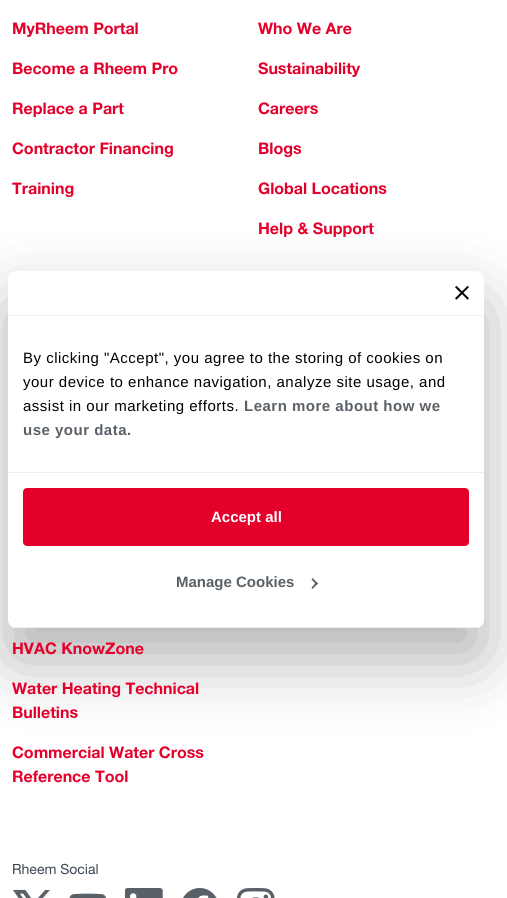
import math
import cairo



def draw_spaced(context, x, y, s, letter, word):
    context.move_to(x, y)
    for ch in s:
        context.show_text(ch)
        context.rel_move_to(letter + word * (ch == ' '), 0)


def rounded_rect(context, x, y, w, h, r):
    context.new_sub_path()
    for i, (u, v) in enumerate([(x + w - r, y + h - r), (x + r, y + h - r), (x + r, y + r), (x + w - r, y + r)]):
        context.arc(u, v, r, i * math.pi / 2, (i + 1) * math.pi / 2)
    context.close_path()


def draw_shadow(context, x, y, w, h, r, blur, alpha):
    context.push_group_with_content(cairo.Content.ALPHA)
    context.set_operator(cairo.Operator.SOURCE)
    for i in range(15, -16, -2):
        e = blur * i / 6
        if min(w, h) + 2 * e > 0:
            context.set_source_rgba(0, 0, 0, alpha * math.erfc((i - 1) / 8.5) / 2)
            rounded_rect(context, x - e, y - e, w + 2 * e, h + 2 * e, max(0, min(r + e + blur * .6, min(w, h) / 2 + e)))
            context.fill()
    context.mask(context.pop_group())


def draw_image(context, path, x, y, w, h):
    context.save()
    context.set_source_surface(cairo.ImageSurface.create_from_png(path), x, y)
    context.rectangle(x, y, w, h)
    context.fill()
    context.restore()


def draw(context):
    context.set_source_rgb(1, 1, 1)
    context.paint()
    draw_image(context, "images/1.png", 13, 889, 37, 9)
    draw_image(context, "images/2.png", 69, 893, 37, 5)
    draw_image(context, "images/3.png", 125, 888, 38, 10)
    draw_image(context, "images/4.png", 183, 888, 34, 10)
    draw_image(context, "images/5.png", 237, 888, 38, 10)
    context.set_source_rgb(0, 0, 0)
    draw_shadow(context, 8, 303, 476, 357, 8, 34, 0.3)
    context.set_source_rgb(1, 1, 1)
    rounded_rect(context, 8, 271, 476, 357, 8)
    context.fill()
    context.set_source_rgb(238 / 255, 238 / 255, 238 / 255)
    context.rectangle(8, 315, 476, 1)
    context.fill()
    draw_image(context, "images/6.png", 455, 286, 14, 14)
    context.rectangle(8, 472, 476, 1)
    context.fill()
    context.save()
    rounded_rect(context, 8, 271, 476, 357, 8)
    context.clip()
    context.rectangle(8, 627, 476, 1)
    context.fill()
    context.restore()
    context.set_source_rgb(228 / 255, 0, 43 / 255)
    rounded_rect(context, 24, 489, 444, 56, 3)
    context.fill_preserve()
    context.stroke()
    context.set_source_rgb(89 / 255, 96 / 255, 103 / 255)
    context.new_path()
    context.move_to(312.5, 578)
    context.line_to(318, 583.5)
    context.line_to(316.5, 585)
    context.line_to(311.5, 579.5)
    context.close_path()
    context.fill()
    context.new_path()
    context.move_to(316.5, 582)
    context.line_to(318, 583.5)
    context.line_to(312.5, 589)
    context.line_to(311.5, 587.5)
    context.close_path()
    context.fill()
    context.select_font_face("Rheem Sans", cairo.FontSlant.NORMAL, cairo.FontWeight.BOLD)
    context.set_font_size(16)
    context.set_source_rgb(228 / 255, 0, 43 / 255)
    context.move_to(12, 34)
    context.show_text("MyRheem Portal")
    context.move_to(12, 74)
    context.show_text("Become a Rheem Pro")
    context.move_to(12, 114)
    context.show_text("Replace a Part")
    context.move_to(12, 154)
    context.show_text("Contractor Financing")
    context.move_to(12, 194)
    context.show_text("Training")
    context.move_to(258, 34)
    context.show_text("Who We Are")
    context.move_to(258, 74)
    context.show_text("Sustainability")
    context.move_to(258, 114)
    context.show_text("Careers")
    context.move_to(258, 154)
    context.show_text("Blogs")
    context.move_to(258, 194)
    context.show_text("Global Locations")
    context.move_to(258, 234)
    context.show_text("Help & Support")
    context.move_to(12, 654)
    context.show_text("HVAC KnowZone")
    context.move_to(12, 694)
    context.show_text("Water Heating Technical")
    context.move_to(12, 718)
    context.show_text("Bulletins")
    context.move_to(12, 758)
    context.show_text("Commercial Water Cross")
    context.move_to(12, 782)
    context.show_text("Reference Tool")
    context.select_font_face("Rheem Sans")
    context.set_font_size(14)
    context.set_source_rgb(57 / 255, 71 / 255, 84 / 255)
    context.move_to(12, 874)
    context.show_text("Rheem Social")
    context.select_font_face("Liberation Sans")
    context.set_font_size(15)
    context.set_source_rgb(0, 0, 0)
    draw_spaced(context, 23, 363, "By clicking \"Accept\", you agree to the storing of cookies on", 0.5, 0)
    draw_spaced(context, 23, 387, "your device to enhance navigation, analyze site usage, and", 0.5, 0)
    draw_spaced(context, 23, 411, "assist in our marketing efforts.", 0.5, 0)
    context.select_font_face("Liberation Sans", cairo.FontSlant.NORMAL, cairo.FontWeight.BOLD)
    context.set_source_rgb(89 / 255, 96 / 255, 103 / 255)
    draw_spaced(context, 244, 411, "Learn more about how we", 0.5, 0)
    draw_spaced(context, 23, 435, "use your data.", 0.5, 0)
    context.set_source_rgb(1, 1, 1)
    context.move_to(211, 522)
    context.show_text("Accept all")
    context.set_source_rgb(89 / 255, 96 / 255, 103 / 255)
    context.move_to(176, 587)
    context.show_text("Manage Cookies")


surface = cairo.ImageSurface(cairo.Format.RGB24, 507, 898)
context = cairo.Context(surface)
options = cairo.FontOptions()
options.set_hint_metrics(cairo.HintMetrics.OFF)
options.set_hint_style(cairo.HintStyle.NONE)
context.set_font_options(options)
context.set_miter_limit(4)
draw(context)
surface.write_to_png("out.png")
